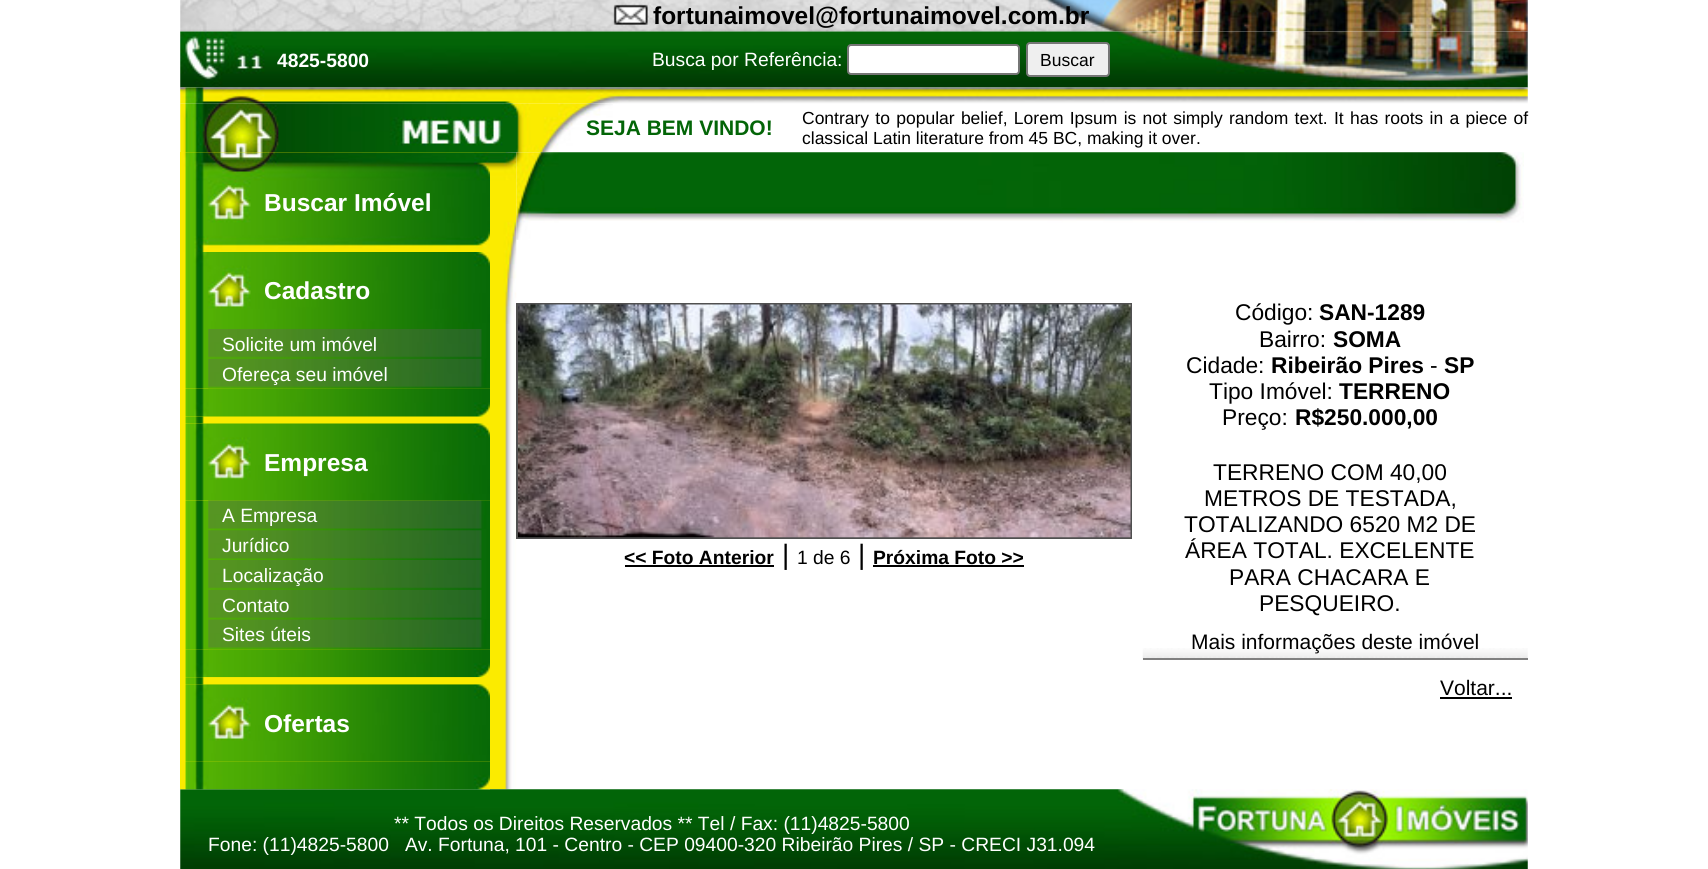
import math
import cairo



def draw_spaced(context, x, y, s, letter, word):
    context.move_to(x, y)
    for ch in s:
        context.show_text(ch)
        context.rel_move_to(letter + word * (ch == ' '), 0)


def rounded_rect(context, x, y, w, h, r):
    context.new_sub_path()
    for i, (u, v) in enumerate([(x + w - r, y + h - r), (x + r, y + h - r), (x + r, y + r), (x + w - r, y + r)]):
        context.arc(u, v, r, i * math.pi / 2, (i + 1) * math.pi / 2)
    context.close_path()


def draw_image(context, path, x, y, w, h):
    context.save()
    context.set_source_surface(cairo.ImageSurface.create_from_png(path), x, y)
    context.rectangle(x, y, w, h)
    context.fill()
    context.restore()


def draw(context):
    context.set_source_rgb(1, 1, 1)
    context.paint()
    draw_image(context, "images/1.png", 180, 0, 1348, 32)
    draw_image(context, "images/2.png", 180, 31, 1348, 57)
    context.set_source_rgb(1, 1, 1)
    rounded_rect(context, 848, 45, 171, 29, 3)
    context.fill_preserve()
    context.set_source_rgb(118 / 255, 118 / 255, 118 / 255)
    context.stroke()
    context.set_source_rgb(239 / 255, 239 / 255, 239 / 255)
    rounded_rect(context, 1027, 43, 82, 33, 3)
    context.fill_preserve()
    context.set_source_rgb(118 / 255, 118 / 255, 118 / 255)
    context.stroke()
    draw_image(context, "images/3.png", 180, 87, 1348, 17)
    draw_image(context, "images/4.png", 180, 103, 433, 50)
    context.set_source_rgb(251 / 255, 235 / 255, 0)
    context.rectangle(180, 152, 310, 637)
    context.fill()
    draw_image(context, "images/5.png", 183, 152, 307, 100)
    draw_image(context, "images/6.png", 185, 252, 305, 77)
    draw_image(context, "images/7.png", 185, 329, 305, 60)
    draw_image(context, "images/8.png", 208, 329, 274, 29)
    draw_image(context, "images/9.png", 208, 358, 282, 31)
    draw_image(context, "images/11.png", 185, 416, 19, 8)
    draw_image(context, "images/10.png", 185, 388, 305, 29)
    draw_image(context, "images/12.png", 185, 423, 305, 78)
    draw_image(context, "images/13.png", 185, 500, 305, 150)
    draw_image(context, "images/14.png", 208, 500, 282, 29)
    draw_image(context, "images/15.png", 208, 530, 274, 29)
    draw_image(context, "images/8.png", 208, 560, 274, 29)
    draw_image(context, "images/16.png", 208, 589, 274, 30)
    draw_image(context, "images/17.png", 208, 619, 282, 31)
    draw_image(context, "images/18.png", 185, 649, 305, 29)
    draw_image(context, "images/20.png", 185, 684, 305, 78)
    draw_image(context, "images/19.png", 185, 677, 298, 8)
    draw_image(context, "images/22.png", 490, 152, 27, 638)
    draw_image(context, "images/27.png", 180, 789, 1348, 80)
    draw_image(context, "images/21.png", 180, 761, 310, 29)
    draw_image(context, "images/24.png", 516, 152, 1008, 88)
    draw_image(context, "images/23.png", 490, 152, 27, 172)
    context.rectangle(517, 304, 614, 234)
    context.set_source_rgb(80 / 255, 80 / 255, 80 / 255)
    context.stroke()
    draw_image(context, "images/25.png", 518, 304, 613, 234)
    context.set_source_rgb(0, 0, 0)
    context.rectangle(625, 565, 149, 2)
    context.fill()
    context.rectangle(873, 565, 151, 2)
    context.fill()
    draw_image(context, "images/26.png", 1142, 648, 386, 12)
    context.set_source_rgb(128 / 255, 128 / 255, 128 / 255)
    context.rectangle(1143, 658, 385, 2)
    context.fill()
    context.set_source_rgb(0, 0, 0)
    context.rectangle(1440, 697, 72, 2)
    context.fill()
    context.select_font_face("Liberation Sans", cairo.FontSlant.NORMAL, cairo.FontWeight.BOLD)
    context.set_font_size(24.5)
    context.move_to(653, 24)
    context.show_text("fortunaimovel@fortunaimovel.com.br")
    context.set_font_size(19.25)
    context.set_source_rgb(1, 1, 1)
    context.move_to(277, 67)
    context.show_text("4825-5800")
    context.select_font_face("Liberation Sans")
    context.move_to(652, 66)
    context.show_text("Busca por Referência:")
    context.set_font_size(17.5)
    context.set_source_rgb(0, 0, 0)
    context.move_to(1040, 66)
    context.show_text("Buscar")
    context.select_font_face("Liberation Sans", cairo.FontSlant.NORMAL, cairo.FontWeight.BOLD)
    context.set_font_size(21)
    context.set_source_rgb(3 / 255, 101 / 255, 7 / 255)
    context.move_to(586, 135)
    context.show_text("SEJA BEM VINDO!")
    context.select_font_face("Liberation Sans")
    context.set_font_size(17.5)
    context.set_source_rgb(0, 0, 0)
    draw_spaced(context, 802, 124, "Contrary to popular belief, Lorem Ipsum is not simply random text. It has roots in a piece of", 0, 1.4)
    context.move_to(802, 144)
    context.show_text("classical Latin literature from 45 BC, making it over.")
    context.select_font_face("Liberation Sans", cairo.FontSlant.NORMAL, cairo.FontWeight.BOLD)
    context.set_font_size(24.5)
    context.set_source_rgb(1, 1, 1)
    context.move_to(264, 211)
    context.show_text("Buscar Imóvel")
    context.move_to(264, 299)
    context.show_text("Cadastro")
    context.select_font_face("Liberation Sans")
    context.set_font_size(19.25)
    context.move_to(222, 351)
    context.show_text("Solicite um imóvel")
    context.move_to(222, 381)
    context.show_text("Ofereça seu imóvel")
    context.select_font_face("Liberation Sans", cairo.FontSlant.NORMAL, cairo.FontWeight.BOLD)
    context.set_font_size(24.5)
    context.move_to(264, 471)
    context.show_text("Empresa")
    context.select_font_face("Liberation Sans")
    context.set_font_size(19.25)
    context.move_to(222, 522)
    context.show_text("A Empresa")
    context.move_to(222, 552)
    context.show_text("Jurídico")
    context.move_to(222, 582)
    context.show_text("Localização")
    context.move_to(222, 612)
    context.show_text("Contato")
    context.move_to(222, 641)
    context.show_text("Sites úteis")
    context.select_font_face("Liberation Sans", cairo.FontSlant.NORMAL, cairo.FontWeight.BOLD)
    context.set_font_size(24.5)
    context.move_to(264, 732)
    context.show_text("Ofertas")
    context.set_font_size(19.25)
    context.set_source_rgb(0, 0, 0)
    context.move_to(624, 564)
    context.show_text("<< Foto Anterior")
    context.select_font_face("Liberation Sans")
    context.set_font_size(28)
    context.move_to(782, 564)
    context.show_text("|")
    context.set_font_size(19.25)
    context.move_to(797, 564)
    context.show_text("1 de 6")
    context.set_font_size(28)
    context.move_to(858, 564)
    context.show_text("|")
    context.select_font_face("Liberation Sans", cairo.FontSlant.NORMAL, cairo.FontWeight.BOLD)
    context.set_font_size(19.25)
    context.move_to(873, 564)
    context.show_text("Próxima Foto >>")
    context.select_font_face("Liberation Sans")
    context.set_font_size(22.75)
    context.move_to(1235, 320)
    context.show_text("Código:")
    context.select_font_face("Liberation Sans", cairo.FontSlant.NORMAL, cairo.FontWeight.BOLD)
    context.move_to(1319, 320)
    context.show_text("SAN-1289")
    context.select_font_face("Liberation Sans")
    context.move_to(1259, 347)
    context.show_text("Bairro:")
    context.select_font_face("Liberation Sans", cairo.FontSlant.NORMAL, cairo.FontWeight.BOLD)
    context.move_to(1333, 347)
    context.show_text("SOMA")
    context.select_font_face("Liberation Sans")
    context.move_to(1186, 373)
    context.show_text("Cidade:")
    context.select_font_face("Liberation Sans", cairo.FontSlant.NORMAL, cairo.FontWeight.BOLD)
    context.move_to(1271, 373)
    context.show_text("Ribeirão Pires")
    context.select_font_face("Liberation Sans")
    context.move_to(1430, 373)
    context.show_text("-")
    context.select_font_face("Liberation Sans", cairo.FontSlant.NORMAL, cairo.FontWeight.BOLD)
    context.move_to(1444, 373)
    context.show_text("SP")
    context.select_font_face("Liberation Sans")
    context.move_to(1209, 399)
    context.show_text("Tipo Imóvel:")
    context.select_font_face("Liberation Sans", cairo.FontSlant.NORMAL, cairo.FontWeight.BOLD)
    context.move_to(1339, 399)
    context.show_text("TERRENO")
    context.select_font_face("Liberation Sans")
    context.move_to(1222, 425)
    context.show_text("Preço:")
    context.select_font_face("Liberation Sans", cairo.FontSlant.NORMAL, cairo.FontWeight.BOLD)
    context.move_to(1295, 425)
    context.show_text("R$250.000,00")
    context.select_font_face("Liberation Sans")
    context.move_to(1213, 480)
    context.show_text("TERRENO COM 40,00")
    context.move_to(1204, 506)
    context.show_text("METROS DE TESTADA,")
    context.move_to(1184, 532)
    context.show_text("TOTALIZANDO 6520 M2 DE")
    context.move_to(1185, 558)
    context.show_text("ÁREA TOTAL. EXCELENTE")
    context.move_to(1229, 585)
    context.show_text("PARA CHACARA E")
    context.move_to(1259, 611)
    context.show_text("PESQUEIRO.")
    context.set_font_size(21)
    context.move_to(1191, 649)
    context.show_text("Mais informações deste imóvel")
    context.move_to(1440, 695)
    context.show_text("Voltar...")
    context.set_font_size(19.25)
    context.set_source_rgb(1, 1, 1)
    context.move_to(394, 830)
    context.show_text("** Todos os Direitos Reservados ** Tel / Fax: (11)4825-5800")
    context.move_to(208, 851)
    context.show_text("Fone: (11)4825-5800   Av. Fortuna, 101 - Centro - CEP 09400-320 Ribeirão Pires / SP - CRECI J31.094")


surface = cairo.ImageSurface(cairo.Format.RGB24, 1708, 869)
context = cairo.Context(surface)
options = cairo.FontOptions()
options.set_hint_metrics(cairo.HintMetrics.OFF)
options.set_hint_style(cairo.HintStyle.NONE)
context.set_font_options(options)
context.set_miter_limit(4)
draw(context)
surface.write_to_png("out.png")
